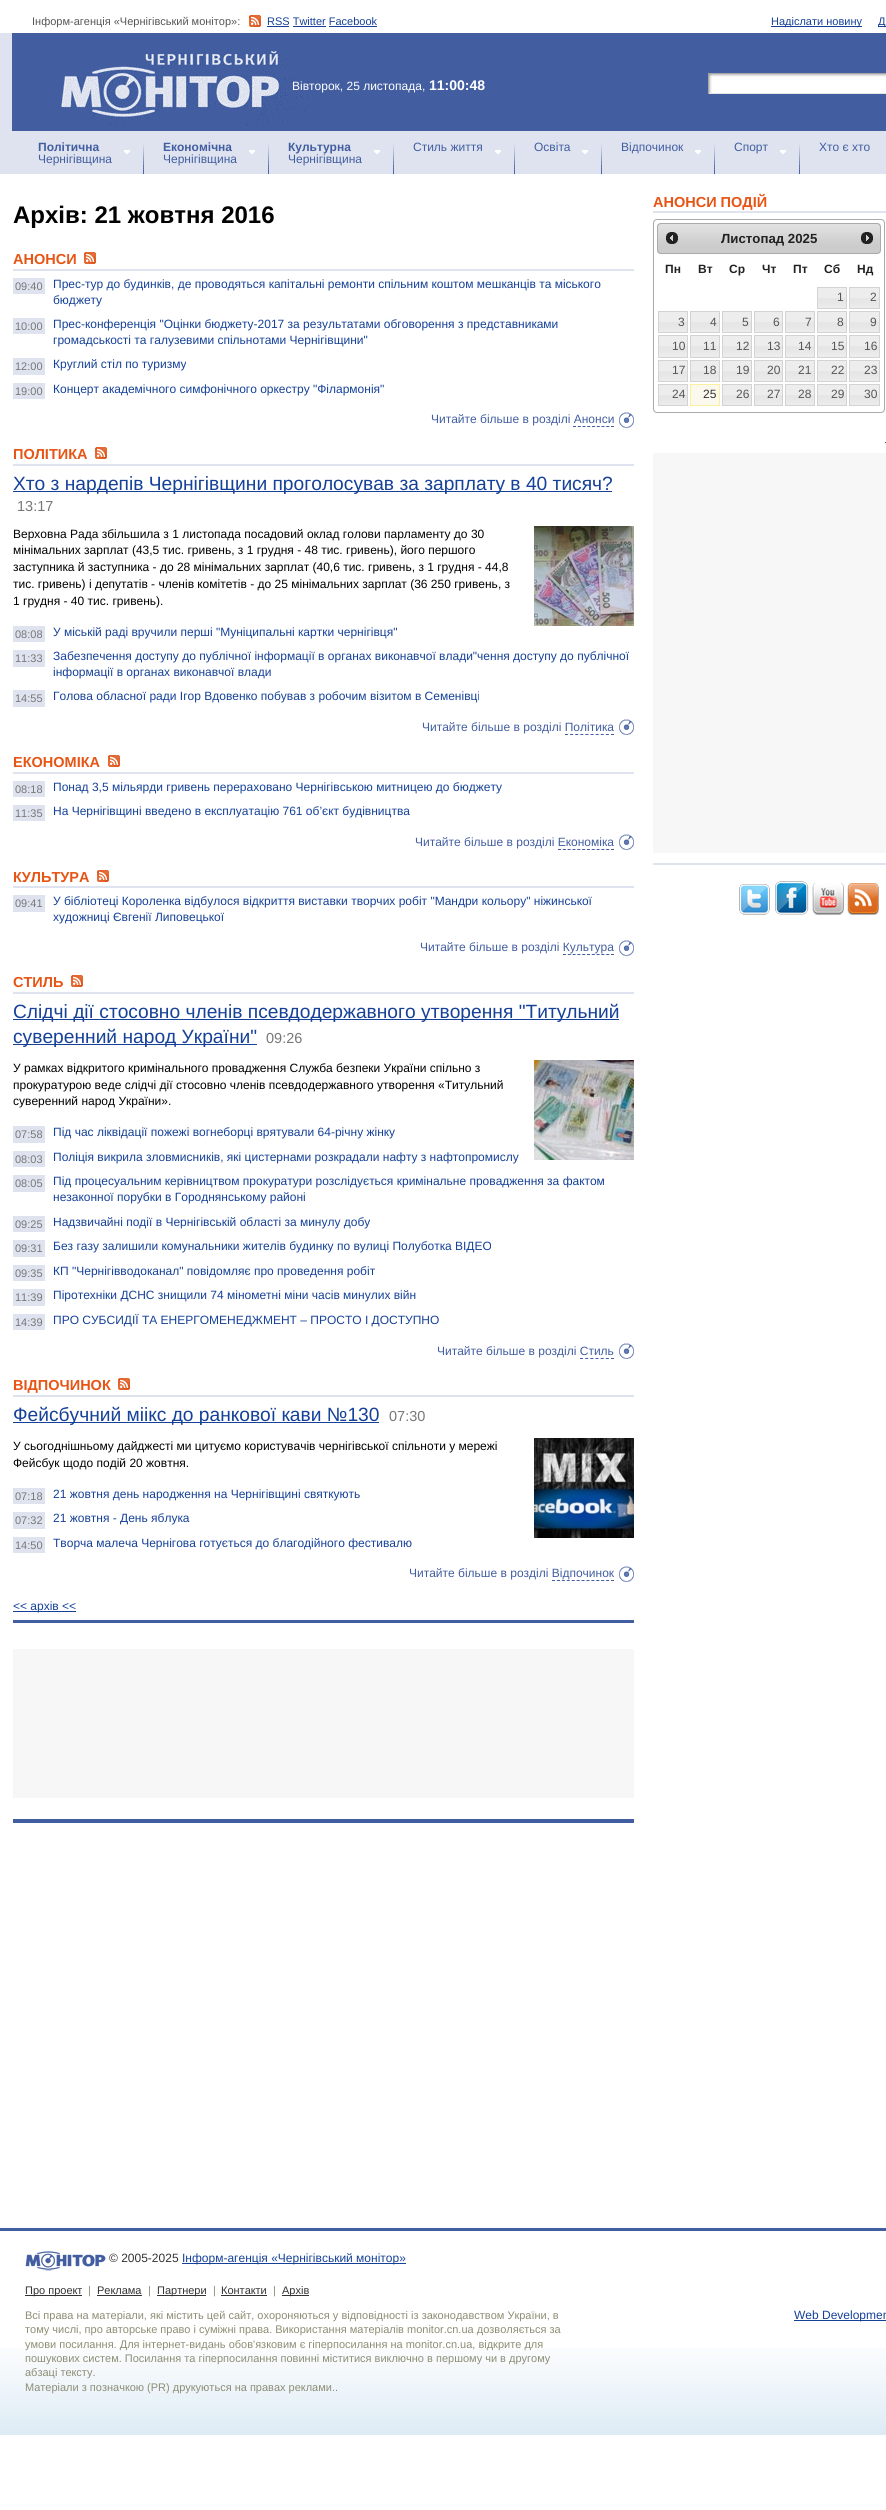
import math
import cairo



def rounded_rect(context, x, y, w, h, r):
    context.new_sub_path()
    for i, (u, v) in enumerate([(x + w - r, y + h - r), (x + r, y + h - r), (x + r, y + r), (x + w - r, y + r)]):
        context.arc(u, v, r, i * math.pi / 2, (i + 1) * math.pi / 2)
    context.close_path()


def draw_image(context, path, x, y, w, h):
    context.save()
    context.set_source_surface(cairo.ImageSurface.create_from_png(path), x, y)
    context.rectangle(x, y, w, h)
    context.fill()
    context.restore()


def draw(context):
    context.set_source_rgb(1, 1, 1)
    context.paint()
    draw_image(context, "images/1.png", 0, 2348, 886, 87)
    draw_image(context, "images/2.png", 249, 15, 12, 12)
    context.set_source_rgb(21 / 255, 65 / 255, 152 / 255)
    context.rectangle(267, 26, 22, 1)
    context.fill()
    context.rectangle(293, 26, 33, 1)
    context.fill()
    context.rectangle(329, 26, 48, 1)
    context.fill()
    context.rectangle(771, 26, 91, 1)
    context.fill()
    context.rectangle(878, 26, 8, 1)
    context.fill()
    context.set_source_rgb(66 / 255, 94 / 255, 160 / 255)
    context.rectangle(12, 33, 874, 98)
    context.fill()
    context.set_source_rgb(222 / 255, 227 / 255, 239 / 255)
    context.rectangle(0, 33, 12, 98)
    context.fill()
    draw_image(context, "images/3.png", 40, 40, 274, 86)
    draw_image(context, "images/4.png", 709, 74, 177, 19)
    context.set_source_rgb(166 / 255, 166 / 255, 166 / 255)
    context.rectangle(708, 73, 178, 1)
    context.fill()
    context.set_source_rgb(228 / 255, 228 / 255, 228 / 255)
    context.rectangle(708, 93, 178, 1)
    context.fill()
    context.set_source_rgb(166 / 255, 166 / 255, 166 / 255)
    context.rectangle(708, 73, 1, 21)
    context.fill()
    context.set_source_rgb(222 / 255, 227 / 255, 239 / 255)
    context.rectangle(0, 131, 886, 43)
    context.fill()
    draw_image(context, "images/5.png", 124, 143, 20, 31)
    draw_image(context, "images/5.png", 249, 143, 20, 31)
    draw_image(context, "images/5.png", 374, 143, 20, 31)
    draw_image(context, "images/5.png", 495, 143, 20, 31)
    draw_image(context, "images/5.png", 582, 143, 20, 31)
    draw_image(context, "images/5.png", 695, 143, 20, 31)
    draw_image(context, "images/5.png", 780, 143, 20, 31)
    context.set_source_rgb(66 / 255, 94 / 255, 160 / 255)
    context.rectangle(13, 1819, 621, 4)
    context.fill()
    context.rectangle(13, 1620, 621, 3)
    context.fill()
    context.set_source_rgb(222 / 255, 227 / 255, 239 / 255)
    context.rectangle(13, 269, 621, 2)
    context.fill()
    draw_image(context, "images/2.png", 84, 252, 12, 12)
    context.rectangle(13, 278, 32, 16)
    context.fill()
    context.rectangle(13, 318, 32, 16)
    context.fill()
    context.rectangle(13, 358, 32, 17)
    context.fill()
    context.rectangle(13, 383, 32, 16)
    context.fill()
    draw_image(context, "images/6.png", 619, 412, 15, 16)
    context.new_path()
    context.move_to(573, 426.5)
    context.line_to(614, 426.5)
    context.set_source_rgb(66 / 255, 94 / 255, 160 / 255)
    context.set_line_width(1)
    context.set_dash([3, 1.75])
    context.stroke()
    context.set_source_rgb(222 / 255, 227 / 255, 239 / 255)
    context.rectangle(13, 464, 621, 2)
    context.fill()
    draw_image(context, "images/2.png", 95, 447, 12, 12)
    context.set_source_rgb(21 / 255, 65 / 255, 152 / 255)
    context.rectangle(13, 491, 599, 1)
    context.fill()
    draw_image(context, "images/7.png", 534, 526, 100, 100)
    context.set_source_rgb(222 / 255, 227 / 255, 239 / 255)
    context.rectangle(13, 626, 32, 16)
    context.fill()
    context.rectangle(13, 650, 32, 17)
    context.fill()
    context.rectangle(13, 690, 32, 17)
    context.fill()
    draw_image(context, "images/6.png", 619, 719, 15, 16)
    context.new_path()
    context.move_to(565, 734.5)
    context.line_to(614, 734.5)
    context.set_source_rgb(66 / 255, 94 / 255, 160 / 255)
    context.set_dash([3, 2.11])
    context.stroke()
    context.set_source_rgb(222 / 255, 227 / 255, 239 / 255)
    context.rectangle(13, 772, 621, 2)
    context.fill()
    draw_image(context, "images/2.png", 108, 755, 12, 12)
    context.rectangle(13, 781, 32, 16)
    context.fill()
    context.rectangle(13, 805, 32, 16)
    context.fill()
    draw_image(context, "images/6.png", 619, 834, 15, 16)
    context.new_path()
    context.move_to(558, 849.5)
    context.line_to(614, 849.5)
    context.set_source_rgb(66 / 255, 94 / 255, 160 / 255)
    context.set_dash([3, 1.82])
    context.stroke()
    context.set_source_rgb(222 / 255, 227 / 255, 239 / 255)
    context.rectangle(13, 886, 621, 2)
    context.fill()
    draw_image(context, "images/2.png", 97, 870, 12, 12)
    context.rectangle(13, 895, 32, 17)
    context.fill()
    draw_image(context, "images/6.png", 619, 940, 15, 16)
    context.new_path()
    context.move_to(563, 954.5)
    context.line_to(614, 954.5)
    context.set_source_rgb(66 / 255, 94 / 255, 160 / 255)
    context.set_dash([3, 1.8])
    context.stroke()
    context.set_source_rgb(222 / 255, 227 / 255, 239 / 255)
    context.rectangle(13, 992, 621, 2)
    context.fill()
    draw_image(context, "images/2.png", 71, 975, 12, 12)
    context.set_source_rgb(21 / 255, 65 / 255, 152 / 255)
    context.rectangle(13, 1019, 606, 1)
    context.fill()
    context.rectangle(13, 1044, 244, 1)
    context.fill()
    draw_image(context, "images/8.png", 534, 1060, 100, 100)
    context.set_source_rgb(222 / 255, 227 / 255, 239 / 255)
    context.rectangle(13, 1126, 32, 17)
    context.fill()
    context.rectangle(13, 1151, 32, 16)
    context.fill()
    context.rectangle(13, 1175, 32, 17)
    context.fill()
    context.rectangle(13, 1216, 32, 16)
    context.fill()
    context.rectangle(13, 1240, 32, 17)
    context.fill()
    context.rectangle(13, 1265, 32, 16)
    context.fill()
    context.rectangle(13, 1289, 32, 17)
    context.fill()
    context.rectangle(13, 1314, 32, 16)
    context.fill()
    draw_image(context, "images/6.png", 619, 1343, 15, 16)
    context.new_path()
    context.move_to(580, 1358.5)
    context.line_to(614, 1358.5)
    context.set_source_rgb(66 / 255, 94 / 255, 160 / 255)
    context.set_dash([3, 2.17])
    context.stroke()
    context.set_source_rgb(222 / 255, 227 / 255, 239 / 255)
    context.rectangle(13, 1395, 621, 2)
    context.fill()
    draw_image(context, "images/2.png", 118, 1378, 12, 12)
    context.set_source_rgb(21 / 255, 65 / 255, 152 / 255)
    context.rectangle(13, 1422, 366, 1)
    context.fill()
    draw_image(context, "images/9.png", 534, 1438, 100, 100)
    context.set_source_rgb(222 / 255, 227 / 255, 239 / 255)
    context.rectangle(13, 1488, 32, 16)
    context.fill()
    context.rectangle(13, 1512, 32, 17)
    context.fill()
    context.rectangle(13, 1537, 32, 16)
    context.fill()
    draw_image(context, "images/6.png", 619, 1566, 15, 16)
    context.new_path()
    context.move_to(552, 1580.5)
    context.line_to(614, 1580.5)
    context.set_source_rgb(66 / 255, 94 / 255, 160 / 255)
    context.set_dash([3, 1.92])
    context.stroke()
    context.set_source_rgb(21 / 255, 65 / 255, 152 / 255)
    context.rectangle(13, 1611, 63, 1)
    context.fill()
    context.set_source_rgb(247 / 255, 247 / 255, 247 / 255)
    context.rectangle(13, 1649, 621, 149)
    context.fill()
    context.set_source_rgb(222 / 255, 227 / 255, 239 / 255)
    context.rectangle(653, 211, 233, 2)
    context.fill()
    rounded_rect(context, 653.5, 219.5, 231, 193, 3.5)
    context.set_source_rgb(170 / 255, 170 / 255, 170 / 255)
    context.set_dash([])
    context.stroke()
    draw_image(context, "images/10.png", 657, 223, 224, 31)
    rounded_rect(context, 657.5, 223.5, 223, 30, 3.5)
    context.stroke()
    draw_image(context, "images/11.png", 666, 232, 12, 12)
    draw_image(context, "images/12.png", 861, 232, 12, 12)
    draw_image(context, "images/13.png", 818, 288, 28, 20)
    context.rectangle(817.5, 287.5, 29, 21)
    context.set_source_rgb(211 / 255, 211 / 255, 211 / 255)
    context.stroke()
    draw_image(context, "images/14.png", 850, 288, 29, 20)
    context.rectangle(849.5, 287.5, 30, 21)
    context.stroke()
    draw_image(context, "images/13.png", 659, 312, 28, 20)
    context.rectangle(658.5, 311.5, 29, 21)
    context.stroke()
    draw_image(context, "images/13.png", 691, 312, 28, 20)
    context.rectangle(690.5, 311.5, 29, 21)
    context.stroke()
    draw_image(context, "images/13.png", 723, 312, 28, 20)
    context.rectangle(722.5, 311.5, 29, 21)
    context.stroke()
    draw_image(context, "images/15.png", 755, 312, 27, 20)
    context.rectangle(754.5, 311.5, 28, 21)
    context.stroke()
    draw_image(context, "images/13.png", 786, 312, 28, 20)
    context.rectangle(785.5, 311.5, 29, 21)
    context.stroke()
    draw_image(context, "images/13.png", 818, 312, 28, 20)
    context.rectangle(817.5, 311.5, 29, 21)
    context.stroke()
    draw_image(context, "images/14.png", 850, 312, 29, 20)
    context.rectangle(849.5, 311.5, 30, 21)
    context.stroke()
    draw_image(context, "images/16.png", 659, 336, 28, 21)
    context.rectangle(658.5, 335.5, 29, 22)
    context.stroke()
    draw_image(context, "images/16.png", 691, 336, 28, 21)
    context.rectangle(690.5, 335.5, 29, 22)
    context.stroke()
    draw_image(context, "images/16.png", 723, 336, 28, 21)
    context.rectangle(722.5, 335.5, 29, 22)
    context.stroke()
    draw_image(context, "images/17.png", 755, 336, 27, 21)
    context.rectangle(754.5, 335.5, 28, 22)
    context.stroke()
    draw_image(context, "images/16.png", 786, 336, 28, 21)
    context.rectangle(785.5, 335.5, 29, 22)
    context.stroke()
    draw_image(context, "images/16.png", 818, 336, 28, 21)
    context.rectangle(817.5, 335.5, 29, 22)
    context.stroke()
    draw_image(context, "images/18.png", 850, 336, 29, 21)
    context.rectangle(849.5, 335.5, 30, 22)
    context.stroke()
    draw_image(context, "images/13.png", 659, 361, 28, 20)
    context.rectangle(658.5, 360.5, 29, 21)
    context.stroke()
    draw_image(context, "images/13.png", 691, 361, 28, 20)
    context.rectangle(690.5, 360.5, 29, 21)
    context.stroke()
    draw_image(context, "images/13.png", 723, 361, 28, 20)
    context.rectangle(722.5, 360.5, 29, 21)
    context.stroke()
    draw_image(context, "images/15.png", 755, 361, 27, 20)
    context.rectangle(754.5, 360.5, 28, 21)
    context.stroke()
    draw_image(context, "images/13.png", 786, 361, 28, 20)
    context.rectangle(785.5, 360.5, 29, 21)
    context.stroke()
    draw_image(context, "images/13.png", 818, 361, 28, 20)
    context.rectangle(817.5, 360.5, 29, 21)
    context.stroke()
    draw_image(context, "images/14.png", 850, 361, 29, 20)
    context.rectangle(849.5, 360.5, 30, 21)
    context.stroke()
    draw_image(context, "images/13.png", 659, 385, 28, 20)
    context.rectangle(658.5, 384.5, 29, 21)
    context.stroke()
    context.set_source_rgb(251 / 255, 249 / 255, 238 / 255)
    context.rectangle(690.5, 384.5, 29, 21)
    context.fill_preserve()
    context.set_source_rgb(252 / 255, 239 / 255, 161 / 255)
    context.stroke()
    draw_image(context, "images/13.png", 723, 385, 28, 20)
    context.rectangle(722.5, 384.5, 29, 21)
    context.set_source_rgb(211 / 255, 211 / 255, 211 / 255)
    context.stroke()
    draw_image(context, "images/15.png", 755, 385, 27, 20)
    context.rectangle(754.5, 384.5, 28, 21)
    context.stroke()
    draw_image(context, "images/13.png", 786, 385, 28, 20)
    context.rectangle(785.5, 384.5, 29, 21)
    context.stroke()
    draw_image(context, "images/13.png", 818, 385, 28, 20)
    context.rectangle(817.5, 384.5, 29, 21)
    context.stroke()
    draw_image(context, "images/14.png", 850, 385, 29, 20)
    context.rectangle(849.5, 384.5, 30, 21)
    context.stroke()
    context.new_path()
    context.move_to(885, 442.5)
    context.line_to(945, 442.5)
    context.set_source_rgb(66 / 255, 94 / 255, 160 / 255)
    context.set_dash([3, 2.18])
    context.stroke()
    context.set_source_rgb(247 / 255, 247 / 255, 247 / 255)
    context.rectangle(653, 453, 233, 400)
    context.fill()
    context.set_source_rgb(222 / 255, 227 / 255, 239 / 255)
    context.rectangle(653, 863, 233, 2)
    context.fill()
    draw_image(context, "images/19.png", 739, 884, 31, 31)
    draw_image(context, "images/20.png", 775, 881, 34, 34)
    draw_image(context, "images/21.png", 812, 883, 32, 32)
    draw_image(context, "images/22.png", 847, 883, 32, 32)
    context.set_source_rgb(66 / 255, 94 / 255, 160 / 255)
    context.rectangle(0, 2228, 886, 3)
    context.fill()
    draw_image(context, "images/23.png", 25, 2250, 81, 21)
    context.set_source_rgb(21 / 255, 65 / 255, 152 / 255)
    context.rectangle(182, 2263, 224, 1)
    context.fill()
    context.set_source_rgb(51 / 255, 51 / 255, 51 / 255)
    context.rectangle(25, 2295, 57, 1)
    context.fill()
    context.rectangle(97, 2295, 45, 1)
    context.fill()
    context.rectangle(157, 2295, 49, 1)
    context.fill()
    context.rectangle(221, 2295, 46, 1)
    context.fill()
    context.rectangle(282, 2295, 27, 1)
    context.fill()
    context.set_source_rgb(21 / 255, 65 / 255, 152 / 255)
    context.rectangle(794, 2320, 92, 1)
    context.fill()
    context.select_font_face("Liberation Sans")
    context.set_font_size(11)
    context.set_source_rgb(85 / 255, 85 / 255, 85 / 255)
    context.move_to(32, 25)
    context.show_text("Інформ-агенція «Чернігівський монітор»:")
    context.set_source_rgb(21 / 255, 65 / 255, 152 / 255)
    context.move_to(267, 25)
    context.show_text("RSS Twitter Facebook")
    context.move_to(771, 25)
    context.show_text("Надіслати новину")
    context.move_to(878, 25)
    context.show_text("Д")
    context.set_font_size(12)
    context.set_source_rgb(1, 1, 1)
    context.move_to(292, 90)
    context.show_text("Вівторок, 25 листопада,")
    context.select_font_face("Liberation Sans", cairo.FontSlant.NORMAL, cairo.FontWeight.BOLD)
    context.set_font_size(14)
    context.move_to(429, 90)
    context.show_text("11:00:48")
    context.set_font_size(12)
    context.set_source_rgb(66 / 255, 94 / 255, 160 / 255)
    context.move_to(38, 151)
    context.show_text("Політична")
    context.select_font_face("Liberation Sans")
    context.move_to(38, 163)
    context.show_text("Чернігівщина")
    context.select_font_face("Liberation Sans", cairo.FontSlant.NORMAL, cairo.FontWeight.BOLD)
    context.move_to(163, 151)
    context.show_text("Економічна")
    context.select_font_face("Liberation Sans")
    context.move_to(163, 163)
    context.show_text("Чернігівщина")
    context.select_font_face("Liberation Sans", cairo.FontSlant.NORMAL, cairo.FontWeight.BOLD)
    context.move_to(288, 151)
    context.show_text("Культурна")
    context.select_font_face("Liberation Sans")
    context.move_to(288, 163)
    context.show_text("Чернігівщина")
    context.move_to(413, 151)
    context.show_text("Стиль життя")
    context.move_to(534, 151)
    context.show_text("Освіта")
    context.move_to(621, 151)
    context.show_text("Відпочинок")
    context.move_to(734, 151)
    context.show_text("Спорт")
    context.move_to(819, 151)
    context.show_text("Хто є хто")
    context.select_font_face("Liberation Sans", cairo.FontSlant.NORMAL, cairo.FontWeight.BOLD)
    context.set_font_size(24)
    context.set_source_rgb(0, 0, 0)
    context.move_to(13, 223)
    context.show_text("Архiв: 21 жовтня 2016")
    context.set_font_size(14.5)
    context.set_source_rgb(231 / 255, 85 / 255, 21 / 255)
    context.move_to(13, 264)
    context.show_text("АНОНСИ")
    context.select_font_face("Liberation Sans")
    context.set_font_size(11)
    context.set_source_rgb(119 / 255, 119 / 255, 119 / 255)
    context.move_to(15, 290)
    context.show_text("09:40")
    context.set_font_size(12)
    context.set_source_rgb(21 / 255, 65 / 255, 152 / 255)
    context.move_to(53, 288)
    context.show_text("Прес-тур до будинків, де проводяться капітальні ремонти спільним коштом мешканців та міського")
    context.move_to(53, 304)
    context.show_text("бюджету")
    context.set_font_size(11)
    context.set_source_rgb(119 / 255, 119 / 255, 119 / 255)
    context.move_to(15, 330)
    context.show_text("10:00")
    context.set_font_size(12)
    context.set_source_rgb(21 / 255, 65 / 255, 152 / 255)
    context.move_to(53, 328)
    context.show_text("Прес-конференція \"Оцінки бюджету-2017 за результатами обговорення з представниками")
    context.move_to(53, 344)
    context.show_text("громадськості та галузевими спільнотами Чернігівщини\"")
    context.set_font_size(11)
    context.set_source_rgb(119 / 255, 119 / 255, 119 / 255)
    context.move_to(15, 370)
    context.show_text("12:00")
    context.set_font_size(12)
    context.set_source_rgb(21 / 255, 65 / 255, 152 / 255)
    context.move_to(53, 368)
    context.show_text("Круглий стіл по туризму")
    context.set_font_size(11)
    context.set_source_rgb(119 / 255, 119 / 255, 119 / 255)
    context.move_to(15, 395)
    context.show_text("19:00")
    context.set_font_size(12)
    context.set_source_rgb(21 / 255, 65 / 255, 152 / 255)
    context.move_to(53, 393)
    context.show_text("Концерт академічного симфонічного оркестру \"Філармонія\"")
    context.set_source_rgb(66 / 255, 94 / 255, 160 / 255)
    context.move_to(431, 423)
    context.show_text("Читайте більше в розділі Анонси")
    context.select_font_face("Liberation Sans", cairo.FontSlant.NORMAL, cairo.FontWeight.BOLD)
    context.set_font_size(14.5)
    context.set_source_rgb(231 / 255, 85 / 255, 21 / 255)
    context.move_to(13, 459)
    context.show_text("ПОЛІТИКА")
    context.select_font_face("Liberation Sans")
    context.set_font_size(19.2)
    context.set_source_rgb(21 / 255, 65 / 255, 152 / 255)
    context.move_to(13, 490)
    context.show_text("Хто з нардепів Чернігівщини проголосував за зарплату в 40 тисяч?")
    context.set_font_size(14.5)
    context.set_source_rgb(119 / 255, 119 / 255, 119 / 255)
    context.move_to(17, 511)
    context.show_text("13:17")
    context.set_font_size(12)
    context.set_source_rgb(0, 0, 0)
    context.move_to(13, 538)
    context.show_text("Верховна Рада збільшила з 1 листопада посадовий оклад голови парламенту до 30")
    context.move_to(13, 554)
    context.show_text("мінімальних зарплат (43,5 тис. гривень, з 1 грудня - 48 тис. гривень), його першого")
    context.move_to(13, 571)
    context.show_text("заступника й заступника - до 28 мінімальних зарплат (40,6 тис. гривень, з 1 грудня - 44,8")
    context.move_to(13, 588)
    context.show_text("тис. гривень) і депутатів - членів комітетів - до 25 мінімальних зарплат (36 250 гривень, з")
    context.move_to(13, 605)
    context.show_text("1 грудня - 40 тис. гривень).")
    context.set_font_size(11)
    context.set_source_rgb(119 / 255, 119 / 255, 119 / 255)
    context.move_to(15, 638)
    context.show_text("08:08")
    context.set_font_size(12)
    context.set_source_rgb(21 / 255, 65 / 255, 152 / 255)
    context.move_to(53, 636)
    context.show_text("У міській раді вручили перші \"Муніципальні картки чернігівця\"")
    context.set_font_size(11)
    context.set_source_rgb(119 / 255, 119 / 255, 119 / 255)
    context.move_to(15, 662)
    context.show_text("11:33")
    context.set_font_size(12)
    context.set_source_rgb(21 / 255, 65 / 255, 152 / 255)
    context.move_to(53, 660)
    context.show_text("Забезпечення доступу до публічної інформації в органах виконавчої влади\"чення доступу до публічної")
    context.move_to(53, 676)
    context.show_text("інформації в органах виконавчої влади")
    context.set_font_size(11)
    context.set_source_rgb(119 / 255, 119 / 255, 119 / 255)
    context.move_to(15, 702)
    context.show_text("14:55")
    context.set_font_size(12)
    context.set_source_rgb(21 / 255, 65 / 255, 152 / 255)
    context.move_to(53, 700)
    context.show_text("Голова обласної ради Ігор Вдовенко побував з робочим візитом в Семенівці")
    context.set_source_rgb(66 / 255, 94 / 255, 160 / 255)
    context.move_to(422, 731)
    context.show_text("Читайте більше в розділі Політика")
    context.select_font_face("Liberation Sans", cairo.FontSlant.NORMAL, cairo.FontWeight.BOLD)
    context.set_font_size(14.5)
    context.set_source_rgb(231 / 255, 85 / 255, 21 / 255)
    context.move_to(13, 767)
    context.show_text("ЕКОНОМІКА")
    context.select_font_face("Liberation Sans")
    context.set_font_size(11)
    context.set_source_rgb(119 / 255, 119 / 255, 119 / 255)
    context.move_to(15, 793)
    context.show_text("08:18")
    context.set_font_size(12)
    context.set_source_rgb(21 / 255, 65 / 255, 152 / 255)
    context.move_to(53, 791)
    context.show_text("Понад 3,5 мільярди гривень перераховано Чернігівською митницею до бюджету")
    context.set_font_size(11)
    context.set_source_rgb(119 / 255, 119 / 255, 119 / 255)
    context.move_to(15, 817)
    context.show_text("11:35")
    context.set_font_size(12)
    context.set_source_rgb(21 / 255, 65 / 255, 152 / 255)
    context.move_to(53, 815)
    context.show_text("На Чернігівщині введено в експлуатацію 761 об’єкт будівництва")
    context.set_source_rgb(66 / 255, 94 / 255, 160 / 255)
    context.move_to(415, 846)
    context.show_text("Читайте більше в розділі Економіка")
    context.select_font_face("Liberation Sans", cairo.FontSlant.NORMAL, cairo.FontWeight.BOLD)
    context.set_font_size(14.5)
    context.set_source_rgb(231 / 255, 85 / 255, 21 / 255)
    context.move_to(13, 882)
    context.show_text("КУЛЬТУРА")
    context.select_font_face("Liberation Sans")
    context.set_font_size(11)
    context.set_source_rgb(119 / 255, 119 / 255, 119 / 255)
    context.move_to(15, 907)
    context.show_text("09:41")
    context.set_font_size(12)
    context.set_source_rgb(21 / 255, 65 / 255, 152 / 255)
    context.move_to(53, 905)
    context.show_text("У бібліотеці Короленка відбулося відкриття виставки творчих робіт \"Мандри кольору\" ніжинської")
    context.move_to(53, 921)
    context.show_text("художниці Євгенії Липовецької")
    context.set_source_rgb(66 / 255, 94 / 255, 160 / 255)
    context.move_to(420, 951)
    context.show_text("Читайте більше в розділі Культура")
    context.select_font_face("Liberation Sans", cairo.FontSlant.NORMAL, cairo.FontWeight.BOLD)
    context.set_font_size(14.5)
    context.set_source_rgb(231 / 255, 85 / 255, 21 / 255)
    context.move_to(13, 987)
    context.show_text("СТИЛЬ")
    context.select_font_face("Liberation Sans")
    context.set_font_size(19.2)
    context.set_source_rgb(21 / 255, 65 / 255, 152 / 255)
    context.move_to(13, 1018)
    context.show_text("Слідчі дії стосовно членів псевдодержавного утворення \"Титульний")
    context.move_to(13, 1043)
    context.show_text("суверенний народ України\"")
    context.set_font_size(14.5)
    context.set_source_rgb(119 / 255, 119 / 255, 119 / 255)
    context.move_to(266, 1043)
    context.show_text("09:26")
    context.set_font_size(12)
    context.set_source_rgb(0, 0, 0)
    context.move_to(13, 1072)
    context.show_text("У рамках відкритого кримінального провадження Служба безпеки України спільно з")
    context.move_to(13, 1089)
    context.show_text("прокуратурою веде слідчі дії стосовно членів псевдодержавного утворення «Титульний")
    context.move_to(13, 1105)
    context.show_text("суверенний народ України».")
    context.set_font_size(11)
    context.set_source_rgb(119 / 255, 119 / 255, 119 / 255)
    context.move_to(15, 1138)
    context.show_text("07:58")
    context.set_font_size(12)
    context.set_source_rgb(21 / 255, 65 / 255, 152 / 255)
    context.move_to(53, 1136)
    context.show_text("Під час ліквідації пожежі вогнеборці врятували 64-річну жінку")
    context.set_font_size(11)
    context.set_source_rgb(119 / 255, 119 / 255, 119 / 255)
    context.move_to(15, 1163)
    context.show_text("08:03")
    context.set_font_size(12)
    context.set_source_rgb(21 / 255, 65 / 255, 152 / 255)
    context.move_to(53, 1161)
    context.show_text("Поліція викрила зловмисників, які цистернами розкрадали нафту з нафтопромислу")
    context.set_font_size(11)
    context.set_source_rgb(119 / 255, 119 / 255, 119 / 255)
    context.move_to(15, 1187)
    context.show_text("08:05")
    context.set_font_size(12)
    context.set_source_rgb(21 / 255, 65 / 255, 152 / 255)
    context.move_to(53, 1185)
    context.show_text("Під процесуальним керівництвом прокуратури розслідується кримінальне провадження за фактом")
    context.move_to(53, 1201)
    context.show_text("незаконної порубки в Городнянському районі")
    context.set_font_size(11)
    context.set_source_rgb(119 / 255, 119 / 255, 119 / 255)
    context.move_to(15, 1228)
    context.show_text("09:25")
    context.set_font_size(12)
    context.set_source_rgb(21 / 255, 65 / 255, 152 / 255)
    context.move_to(53, 1226)
    context.show_text("Надзвичайні події в Чернігівській області за минулу добу")
    context.set_font_size(11)
    context.set_source_rgb(119 / 255, 119 / 255, 119 / 255)
    context.move_to(15, 1252)
    context.show_text("09:31")
    context.set_font_size(12)
    context.set_source_rgb(21 / 255, 65 / 255, 152 / 255)
    context.move_to(53, 1250)
    context.show_text("Без газу залишили комунальники жителів будинку по вулиці Полуботка ВІДЕО")
    context.set_font_size(11)
    context.set_source_rgb(119 / 255, 119 / 255, 119 / 255)
    context.move_to(15, 1277)
    context.show_text("09:35")
    context.set_font_size(12)
    context.set_source_rgb(21 / 255, 65 / 255, 152 / 255)
    context.move_to(53, 1275)
    context.show_text("КП \"Чернігівводоканал\" повідомляє про проведення робіт")
    context.set_font_size(11)
    context.set_source_rgb(119 / 255, 119 / 255, 119 / 255)
    context.move_to(15, 1301)
    context.show_text("11:39")
    context.set_font_size(12)
    context.set_source_rgb(21 / 255, 65 / 255, 152 / 255)
    context.move_to(53, 1299)
    context.show_text("Піротехніки ДСНС знищили 74 мінометні міни часів минулих війн")
    context.set_font_size(11)
    context.set_source_rgb(119 / 255, 119 / 255, 119 / 255)
    context.move_to(15, 1326)
    context.show_text("14:39")
    context.set_font_size(12)
    context.set_source_rgb(21 / 255, 65 / 255, 152 / 255)
    context.move_to(53, 1324)
    context.show_text("ПРО СУБСИДІЇ ТА ЕНЕРГОМЕНЕДЖМЕНТ – ПРОСТО І ДОСТУПНО")
    context.set_source_rgb(66 / 255, 94 / 255, 160 / 255)
    context.move_to(437, 1355)
    context.show_text("Читайте більше в розділі Стиль")
    context.select_font_face("Liberation Sans", cairo.FontSlant.NORMAL, cairo.FontWeight.BOLD)
    context.set_font_size(14.5)
    context.set_source_rgb(231 / 255, 85 / 255, 21 / 255)
    context.move_to(13, 1390)
    context.show_text("ВІДПОЧИНОК")
    context.select_font_face("Liberation Sans")
    context.set_font_size(19.2)
    context.set_source_rgb(21 / 255, 65 / 255, 152 / 255)
    context.move_to(13, 1421)
    context.show_text("Фейсбучний міікс до ранкової кави №130")
    context.set_font_size(14.5)
    context.set_source_rgb(119 / 255, 119 / 255, 119 / 255)
    context.move_to(389, 1421)
    context.show_text("07:30")
    context.set_font_size(12)
    context.set_source_rgb(0, 0, 0)
    context.move_to(13, 1450)
    context.show_text("У сьогоднішньому дайджесті ми цитуємо користувачів чернігівської спільноти у мережі")
    context.move_to(13, 1467)
    context.show_text("Фейсбук щодо подій 20 жовтня.")
    context.set_font_size(11)
    context.set_source_rgb(119 / 255, 119 / 255, 119 / 255)
    context.move_to(15, 1500)
    context.show_text("07:18")
    context.set_font_size(12)
    context.set_source_rgb(21 / 255, 65 / 255, 152 / 255)
    context.move_to(53, 1498)
    context.show_text("21 жовтня день народження на Чернігівщині святкують")
    context.set_font_size(11)
    context.set_source_rgb(119 / 255, 119 / 255, 119 / 255)
    context.move_to(15, 1524)
    context.show_text("07:32")
    context.set_font_size(12)
    context.set_source_rgb(21 / 255, 65 / 255, 152 / 255)
    context.move_to(53, 1522)
    context.show_text("21 жовтня - День яблука")
    context.set_font_size(11)
    context.set_source_rgb(119 / 255, 119 / 255, 119 / 255)
    context.move_to(15, 1549)
    context.show_text("14:50")
    context.set_font_size(12)
    context.set_source_rgb(21 / 255, 65 / 255, 152 / 255)
    context.move_to(53, 1547)
    context.show_text("Творча малеча Чернігова готується до благодійного фестивалю")
    context.set_source_rgb(66 / 255, 94 / 255, 160 / 255)
    context.move_to(409, 1577)
    context.show_text("Читайте більше в розділі Відпочинок")
    context.set_source_rgb(21 / 255, 65 / 255, 152 / 255)
    context.move_to(13, 1610)
    context.show_text("<< архiв <<")
    context.select_font_face("Liberation Sans", cairo.FontSlant.NORMAL, cairo.FontWeight.BOLD)
    context.set_font_size(14.5)
    context.set_source_rgb(231 / 255, 85 / 255, 21 / 255)
    context.move_to(653, 207)
    context.show_text("АНОНСИ ПОДІЙ")
    context.set_font_size(13.25)
    context.set_source_rgb(34 / 255, 34 / 255, 34 / 255)
    context.move_to(721, 243)
    context.show_text("Листопад 2025")
    context.set_font_size(12)
    context.move_to(665, 273)
    context.show_text("Пн")
    context.move_to(698, 273)
    context.show_text("Вт")
    context.move_to(729, 273)
    context.show_text("Ср")
    context.move_to(762, 273)
    context.show_text("Чт")
    context.move_to(793, 273)
    context.show_text("Пт")
    context.move_to(824, 273)
    context.show_text("Сб")
    context.move_to(857, 273)
    context.show_text("Нд")
    context.select_font_face("Liberation Sans")
    context.set_source_rgb(85 / 255, 85 / 255, 85 / 255)
    context.move_to(837, 301)
    context.show_text("1")
    context.move_to(870, 301)
    context.show_text("2")
    context.move_to(678, 326)
    context.show_text("3")
    context.move_to(710, 326)
    context.show_text("4")
    context.move_to(742, 326)
    context.show_text("5")
    context.move_to(773, 326)
    context.show_text("6")
    context.move_to(805, 326)
    context.show_text("7")
    context.move_to(837, 326)
    context.show_text("8")
    context.move_to(870, 326)
    context.show_text("9")
    context.move_to(672, 350)
    context.show_text("10")
    context.move_to(703, 350)
    context.show_text("11")
    context.move_to(736, 350)
    context.show_text("12")
    context.move_to(767, 350)
    context.show_text("13")
    context.move_to(798, 350)
    context.show_text("14")
    context.move_to(831, 350)
    context.show_text("15")
    context.move_to(864, 350)
    context.show_text("16")
    context.move_to(672, 374)
    context.show_text("17")
    context.move_to(703, 374)
    context.show_text("18")
    context.move_to(736, 374)
    context.show_text("19")
    context.move_to(767, 374)
    context.show_text("20")
    context.move_to(798, 374)
    context.show_text("21")
    context.move_to(831, 374)
    context.show_text("22")
    context.move_to(864, 374)
    context.show_text("23")
    context.move_to(672, 398)
    context.show_text("24")
    context.set_source_rgb(51 / 255, 51 / 255, 51 / 255)
    context.move_to(703, 398)
    context.show_text("25")
    context.set_source_rgb(85 / 255, 85 / 255, 85 / 255)
    context.move_to(736, 398)
    context.show_text("26")
    context.move_to(767, 398)
    context.show_text("27")
    context.move_to(798, 398)
    context.show_text("28")
    context.move_to(831, 398)
    context.show_text("29")
    context.move_to(864, 398)
    context.show_text("30")
    context.set_source_rgb(51 / 255, 51 / 255, 51 / 255)
    context.move_to(109, 2262)
    context.show_text("© 2005-2025")
    context.set_source_rgb(21 / 255, 65 / 255, 152 / 255)
    context.move_to(182, 2262)
    context.show_text("Інформ-агенція «Чернігівський монітор»")
    context.set_font_size(11)
    context.set_source_rgb(51 / 255, 51 / 255, 51 / 255)
    context.move_to(25, 2294)
    context.show_text("Про проект")
    context.set_source_rgb(142 / 255, 141 / 255, 116 / 255)
    context.move_to(88, 2294)
    context.show_text("|")
    context.set_source_rgb(51 / 255, 51 / 255, 51 / 255)
    context.move_to(97, 2294)
    context.show_text("Реклама")
    context.set_source_rgb(142 / 255, 141 / 255, 116 / 255)
    context.move_to(148, 2294)
    context.show_text("|")
    context.set_source_rgb(51 / 255, 51 / 255, 51 / 255)
    context.move_to(157, 2294)
    context.show_text("Партнери")
    context.set_source_rgb(142 / 255, 141 / 255, 116 / 255)
    context.move_to(213, 2294)
    context.show_text("|")
    context.set_source_rgb(51 / 255, 51 / 255, 51 / 255)
    context.move_to(221, 2294)
    context.show_text("Контакти")
    context.set_source_rgb(142 / 255, 141 / 255, 116 / 255)
    context.move_to(273, 2294)
    context.show_text("|")
    context.set_source_rgb(51 / 255, 51 / 255, 51 / 255)
    context.move_to(282, 2294)
    context.show_text("Архів")
    context.set_source_rgb(142 / 255, 141 / 255, 116 / 255)
    context.move_to(25, 2319)
    context.show_text("Всі права на матеріали, які містить цей сайт, охороняються у відповідності із законодавством України, в")
    context.move_to(25, 2333)
    context.show_text("тому числі, про авторське право і суміжні права. Використання матерiалiв monitor.cn.ua дозволяється за")
    context.move_to(25, 2348)
    context.show_text("умови посилання. Для iнтернет-видань обов'язковим є гiперпосилання на monitor.cn.ua, відкрите для")
    context.move_to(25, 2362)
    context.show_text("пошукових систем. Посилання та гіперпосилання повинні міститися виключно в першому чи в другому")
    context.move_to(25, 2376)
    context.show_text("абзаці тексту.")
    context.move_to(25, 2391)
    context.show_text("Матеріали з позначкою (PR) друкуються на правах реклами..")
    context.set_font_size(12)
    context.set_source_rgb(21 / 255, 65 / 255, 152 / 255)
    context.move_to(794, 2319)
    context.show_text("Web Developmen")


surface = cairo.ImageSurface(cairo.Format.RGB24, 886, 2510)
context = cairo.Context(surface)
options = cairo.FontOptions()
options.set_hint_metrics(cairo.HintMetrics.OFF)
options.set_hint_style(cairo.HintStyle.NONE)
context.set_font_options(options)
context.set_miter_limit(4)
draw(context)
surface.write_to_png("out.png")
